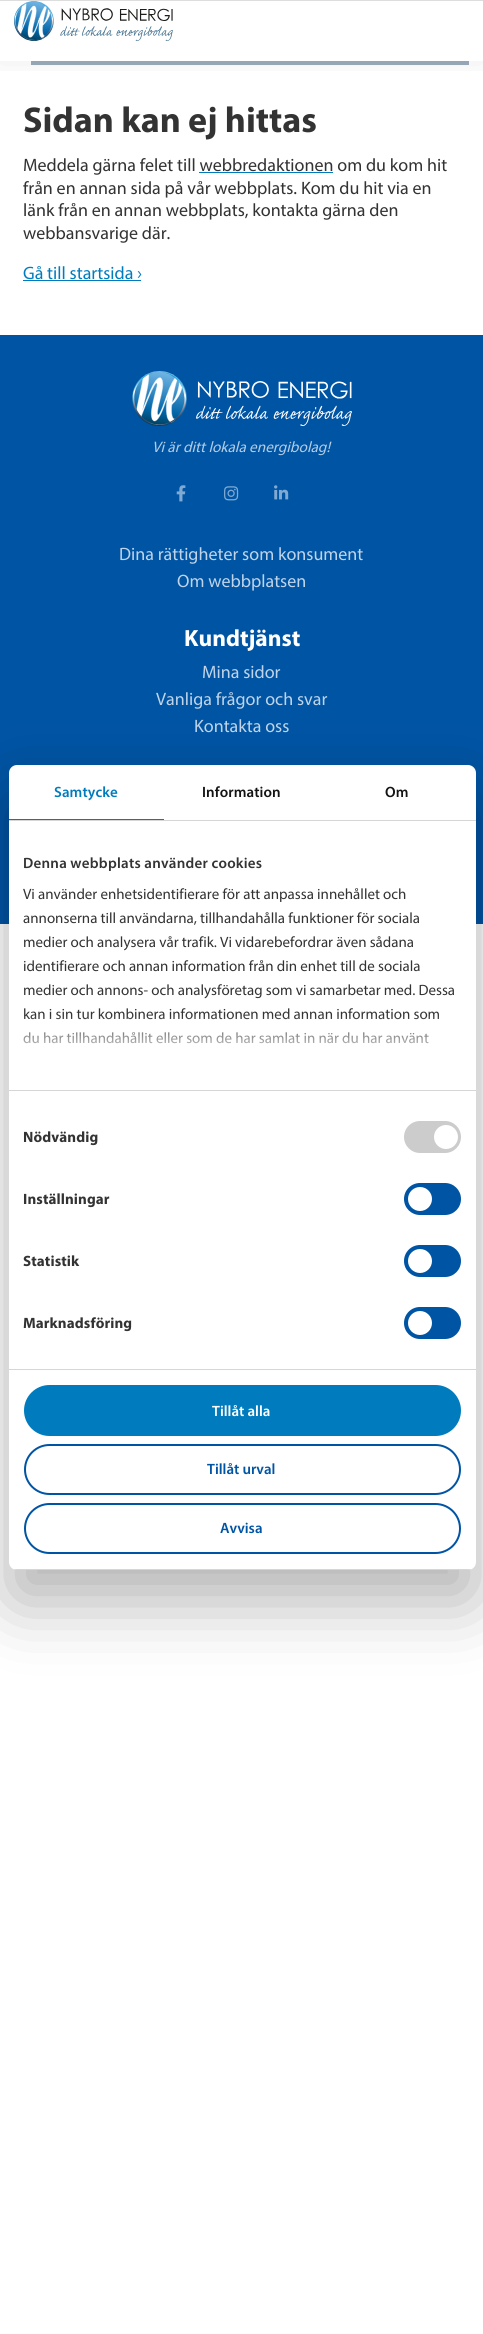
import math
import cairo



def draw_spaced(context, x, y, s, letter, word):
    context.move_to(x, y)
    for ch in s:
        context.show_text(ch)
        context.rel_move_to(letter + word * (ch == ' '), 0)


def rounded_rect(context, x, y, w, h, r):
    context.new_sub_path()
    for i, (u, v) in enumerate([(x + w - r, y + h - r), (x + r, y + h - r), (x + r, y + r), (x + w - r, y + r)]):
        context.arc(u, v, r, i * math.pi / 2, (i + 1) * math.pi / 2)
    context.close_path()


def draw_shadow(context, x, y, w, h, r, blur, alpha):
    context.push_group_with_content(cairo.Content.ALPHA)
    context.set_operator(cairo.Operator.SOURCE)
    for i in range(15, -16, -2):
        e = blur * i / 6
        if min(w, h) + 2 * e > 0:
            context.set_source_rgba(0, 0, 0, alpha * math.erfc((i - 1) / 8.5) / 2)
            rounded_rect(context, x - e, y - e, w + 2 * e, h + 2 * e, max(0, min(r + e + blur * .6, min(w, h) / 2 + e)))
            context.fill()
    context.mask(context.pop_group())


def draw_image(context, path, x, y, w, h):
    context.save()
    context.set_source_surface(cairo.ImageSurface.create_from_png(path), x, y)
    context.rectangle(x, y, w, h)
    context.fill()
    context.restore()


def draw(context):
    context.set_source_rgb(1, 1, 1)
    context.paint()
    context.save()
    context.rectangle(0, 61, 483, 23)
    context.clip()
    context.set_source_rgb(153 / 255, 171 / 255, 188 / 255)
    context.new_path()
    context.move_to(31, 57)
    context.line_to(31, 65)
    context.line_to(469, 65)
    context.line_to(469, -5)
    context.line_to(461, -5)
    context.line_to(461, 57)
    context.close_path()
    context.fill()
    context.restore()
    context.save()
    context.rectangle(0, 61, 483, 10)
    context.clip()
    context.set_source_rgb(35 / 255, 31 / 255, 32 / 255)
    draw_shadow(context, 0, -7, 483, 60, 0, 16, 0.15)
    context.restore()
    draw_image(context, "images/1.png", 14, 1, 159, 40)
    context.set_source_rgb(221 / 255, 221 / 255, 221 / 255)
    context.rectangle(0, 0, 483, 1)
    context.fill()
    context.set_source_rgb(0, 124 / 255, 190 / 255)
    context.rectangle(23, 280, 118, 1)
    context.fill()
    context.set_source_rgb(0, 84 / 255, 164 / 255)
    context.rectangle(0, 335, 483, 589)
    context.fill()
    draw_image(context, "images/2.png", 132, 371, 220, 55)
    draw_image(context, "images/3.png", 176, 485, 10, 17)
    draw_image(context, "images/4.png", 224, 486, 15, 15)
    draw_image(context, "images/5.png", 274, 485, 15, 15)
    context.set_source_rgb(0, 0, 0)
    draw_shadow(context, 9, 797, 467, 805, 8, 34, 0.3)
    context.set_source_rgb(1, 1, 1)
    rounded_rect(context, 9, 765, 467, 805, 8)
    context.fill()
    context.set_source_rgb(214 / 255, 214 / 255, 214 / 255)
    context.rectangle(9, 820, 467, 1)
    context.fill()
    context.set_source_rgb(0, 124 / 255, 190 / 255)
    context.rectangle(9, 819, 155, 1)
    context.fill()
    context.set_source_rgb(214 / 255, 214 / 255, 214 / 255)
    context.rectangle(9, 1090, 467, 1)
    context.fill()
    context.rectangle(9, 1369, 467, 1)
    context.fill()
    context.set_source_rgb(204 / 255, 204 / 255, 204 / 255)
    rounded_rect(context, 404, 1121, 57, 32, 16)
    context.fill()
    context.set_source_rgb(1, 1, 1)
    context.arc(446, 1137, 12, 0, 2 * math.pi)
    context.fill()
    context.set_source_rgb(0, 84 / 255, 164 / 255)
    rounded_rect(context, 404, 1183, 57, 32, 16)
    context.fill()
    context.set_source_rgb(1, 1, 1)
    context.arc(420, 1199, 12, 0, 2 * math.pi)
    context.fill()
    context.set_source_rgb(0, 84 / 255, 164 / 255)
    rounded_rect(context, 404, 1245, 57, 32, 16)
    context.fill()
    context.set_source_rgb(1, 1, 1)
    context.arc(420, 1261, 12, 0, 2 * math.pi)
    context.fill()
    context.set_source_rgb(0, 84 / 255, 164 / 255)
    rounded_rect(context, 404, 1307, 57, 32, 16)
    context.fill()
    context.set_source_rgb(1, 1, 1)
    context.arc(420, 1323, 12, 0, 2 * math.pi)
    context.fill()
    context.save()
    rounded_rect(context, 9, 765, 467, 805, 8)
    context.clip()
    context.set_source_rgb(214 / 255, 214 / 255, 214 / 255)
    context.rectangle(9, 1569, 467, 1)
    context.fill()
    context.restore()
    context.set_source_rgb(0, 124 / 255, 190 / 255)
    rounded_rect(context, 25, 1386, 435, 49, 24.5)
    context.fill_preserve()
    context.stroke()
    rounded_rect(context, 25, 1445, 435, 49, 24.5)
    context.set_source_rgb(0, 84 / 255, 164 / 255)
    context.stroke()
    rounded_rect(context, 25, 1504, 435, 49, 24.5)
    context.stroke()
    context.select_font_face("Myriad", cairo.FontSlant.NORMAL, cairo.FontWeight.BOLD)
    context.set_font_size(36)
    context.set_source_rgb(51 / 255, 51 / 255, 51 / 255)
    context.move_to(23, 132)
    context.show_text("Sidan kan ej hittas")
    context.select_font_face("Myriad")
    context.set_font_size(18)
    context.move_to(23, 171)
    context.show_text("Meddela gärna felet till webbredaktionen om du kom hit")
    context.set_source_rgb(0, 124 / 255, 190 / 255)
    context.rectangle(199, 172, 134, 1)
    context.fill()
    context.set_source_rgb(51 / 255, 51 / 255, 51 / 255)
    context.move_to(23, 194)
    context.show_text("från en annan sida på vår webbplats. Kom du hit via en")
    context.move_to(23, 216)
    context.show_text("länk från en annan webbplats, kontakta gärna den")
    context.move_to(23, 239)
    context.show_text("webbansvarige där.")
    context.set_source_rgb(0, 124 / 255, 190 / 255)
    context.move_to(23, 279)
    context.show_text("Gå till startsida ›")
    context.select_font_face("Myriad", cairo.FontSlant.ITALIC)
    context.set_font_size(15.25)
    context.set_source_rgb(179 / 255, 204 / 255, 228 / 255)
    context.move_to(152, 452)
    context.show_text("Vi är ditt lokala energibolag!")
    context.select_font_face("Myriad")
    context.set_font_size(18)
    context.set_source_rgb(191 / 255, 212 / 255, 232 / 255)
    context.move_to(119, 560)
    context.show_text("Dina rättigheter som konsument")
    context.move_to(177, 587)
    context.show_text("Om webbplatsen")
    context.select_font_face("Myriad", cairo.FontSlant.NORMAL, cairo.FontWeight.BOLD)
    context.set_font_size(23.5)
    context.set_source_rgb(1, 1, 1)
    context.move_to(184, 646)
    context.show_text("Kundtjänst")
    context.select_font_face("Myriad")
    context.set_font_size(18)
    context.set_source_rgb(191 / 255, 212 / 255, 232 / 255)
    context.move_to(202, 678)
    context.show_text("Mina sidor")
    context.move_to(156, 705)
    context.show_text("Vanliga frågor och svar")
    context.move_to(194, 732)
    context.show_text("Kontakta oss")
    context.select_font_face("Myriad SemiBold")
    context.set_font_size(15)
    context.set_source_rgb(0, 124 / 255, 190 / 255)
    draw_spaced(context, 54, 797, "Samtycke", 0.1, 0)
    context.set_source_rgb(20 / 255, 20 / 255, 20 / 255)
    draw_spaced(context, 202, 797, "Information", 0.1, 0)
    draw_spaced(context, 385, 797, "Om", 0.1, 0)
    context.set_source_rgb(51 / 255, 51 / 255, 51 / 255)
    draw_spaced(context, 23, 868, "Denna webbplats använder cookies", 0.25, 0)
    context.select_font_face("Myriad")
    context.move_to(23, 899)
    context.show_text("Vi använder enhetsidentifierare för att anpassa innehållet och")
    context.move_to(23, 923)
    context.show_text("annonserna till användarna, tillhandahålla funktioner för sociala")
    context.move_to(23, 947)
    context.show_text("medier och analysera vår trafik. Vi vidarebefordrar även sådana")
    context.move_to(23, 971)
    context.show_text("identifierare och annan information från din enhet till de sociala")
    context.move_to(23, 995)
    context.show_text("medier och annons- och analysföretag som vi samarbetar med. Dessa")
    context.move_to(23, 1019)
    context.show_text("kan i sin tur kombinera informationen med annan information som")
    context.move_to(23, 1043)
    context.show_text("du har tillhandahållit eller som de har samlat in när du har använt")
    gradient = cairo.LinearGradient(236, 1090, 236, 1015)
    gradient.add_color_stop_rgba(0, 1, 1, 1, 1)
    gradient.add_color_stop_rgba(0.5, 1, 1, 1, 0.8)
    gradient.add_color_stop_rgba(1, 1, 1, 1, 0)
    context.set_source(gradient)
    context.rectangle(23, 1016, 416, 28)
    context.fill()
    context.select_font_face("Myriad", cairo.FontSlant.NORMAL, cairo.FontWeight.BOLD)
    context.set_source_rgb(51 / 255, 51 / 255, 51 / 255)
    draw_spaced(context, 23, 1142, "Nödvändig", 0.1, 0)
    draw_spaced(context, 23, 1204, "Inställningar", 0.1, 0)
    draw_spaced(context, 23, 1266, "Statistik", 0.1, 0)
    draw_spaced(context, 23, 1328, "Marknadsföring", 0.1, 0)
    context.select_font_face("Myriad SemiBold")
    context.set_source_rgb(1, 1, 1)
    context.move_to(212, 1416)
    context.show_text("Tillåt alla")
    context.set_source_rgb(0, 84 / 255, 164 / 255)
    context.move_to(207, 1474)
    context.show_text("Tillåt urval")
    context.move_to(220, 1533)
    context.show_text("Avvisa")


surface = cairo.ImageSurface(cairo.Format.RGB24, 483, 2334)
context = cairo.Context(surface)
options = cairo.FontOptions()
options.set_hint_metrics(cairo.HintMetrics.OFF)
options.set_hint_style(cairo.HintStyle.NONE)
context.set_font_options(options)
context.set_miter_limit(4)
draw(context)
surface.write_to_png("out.png")
